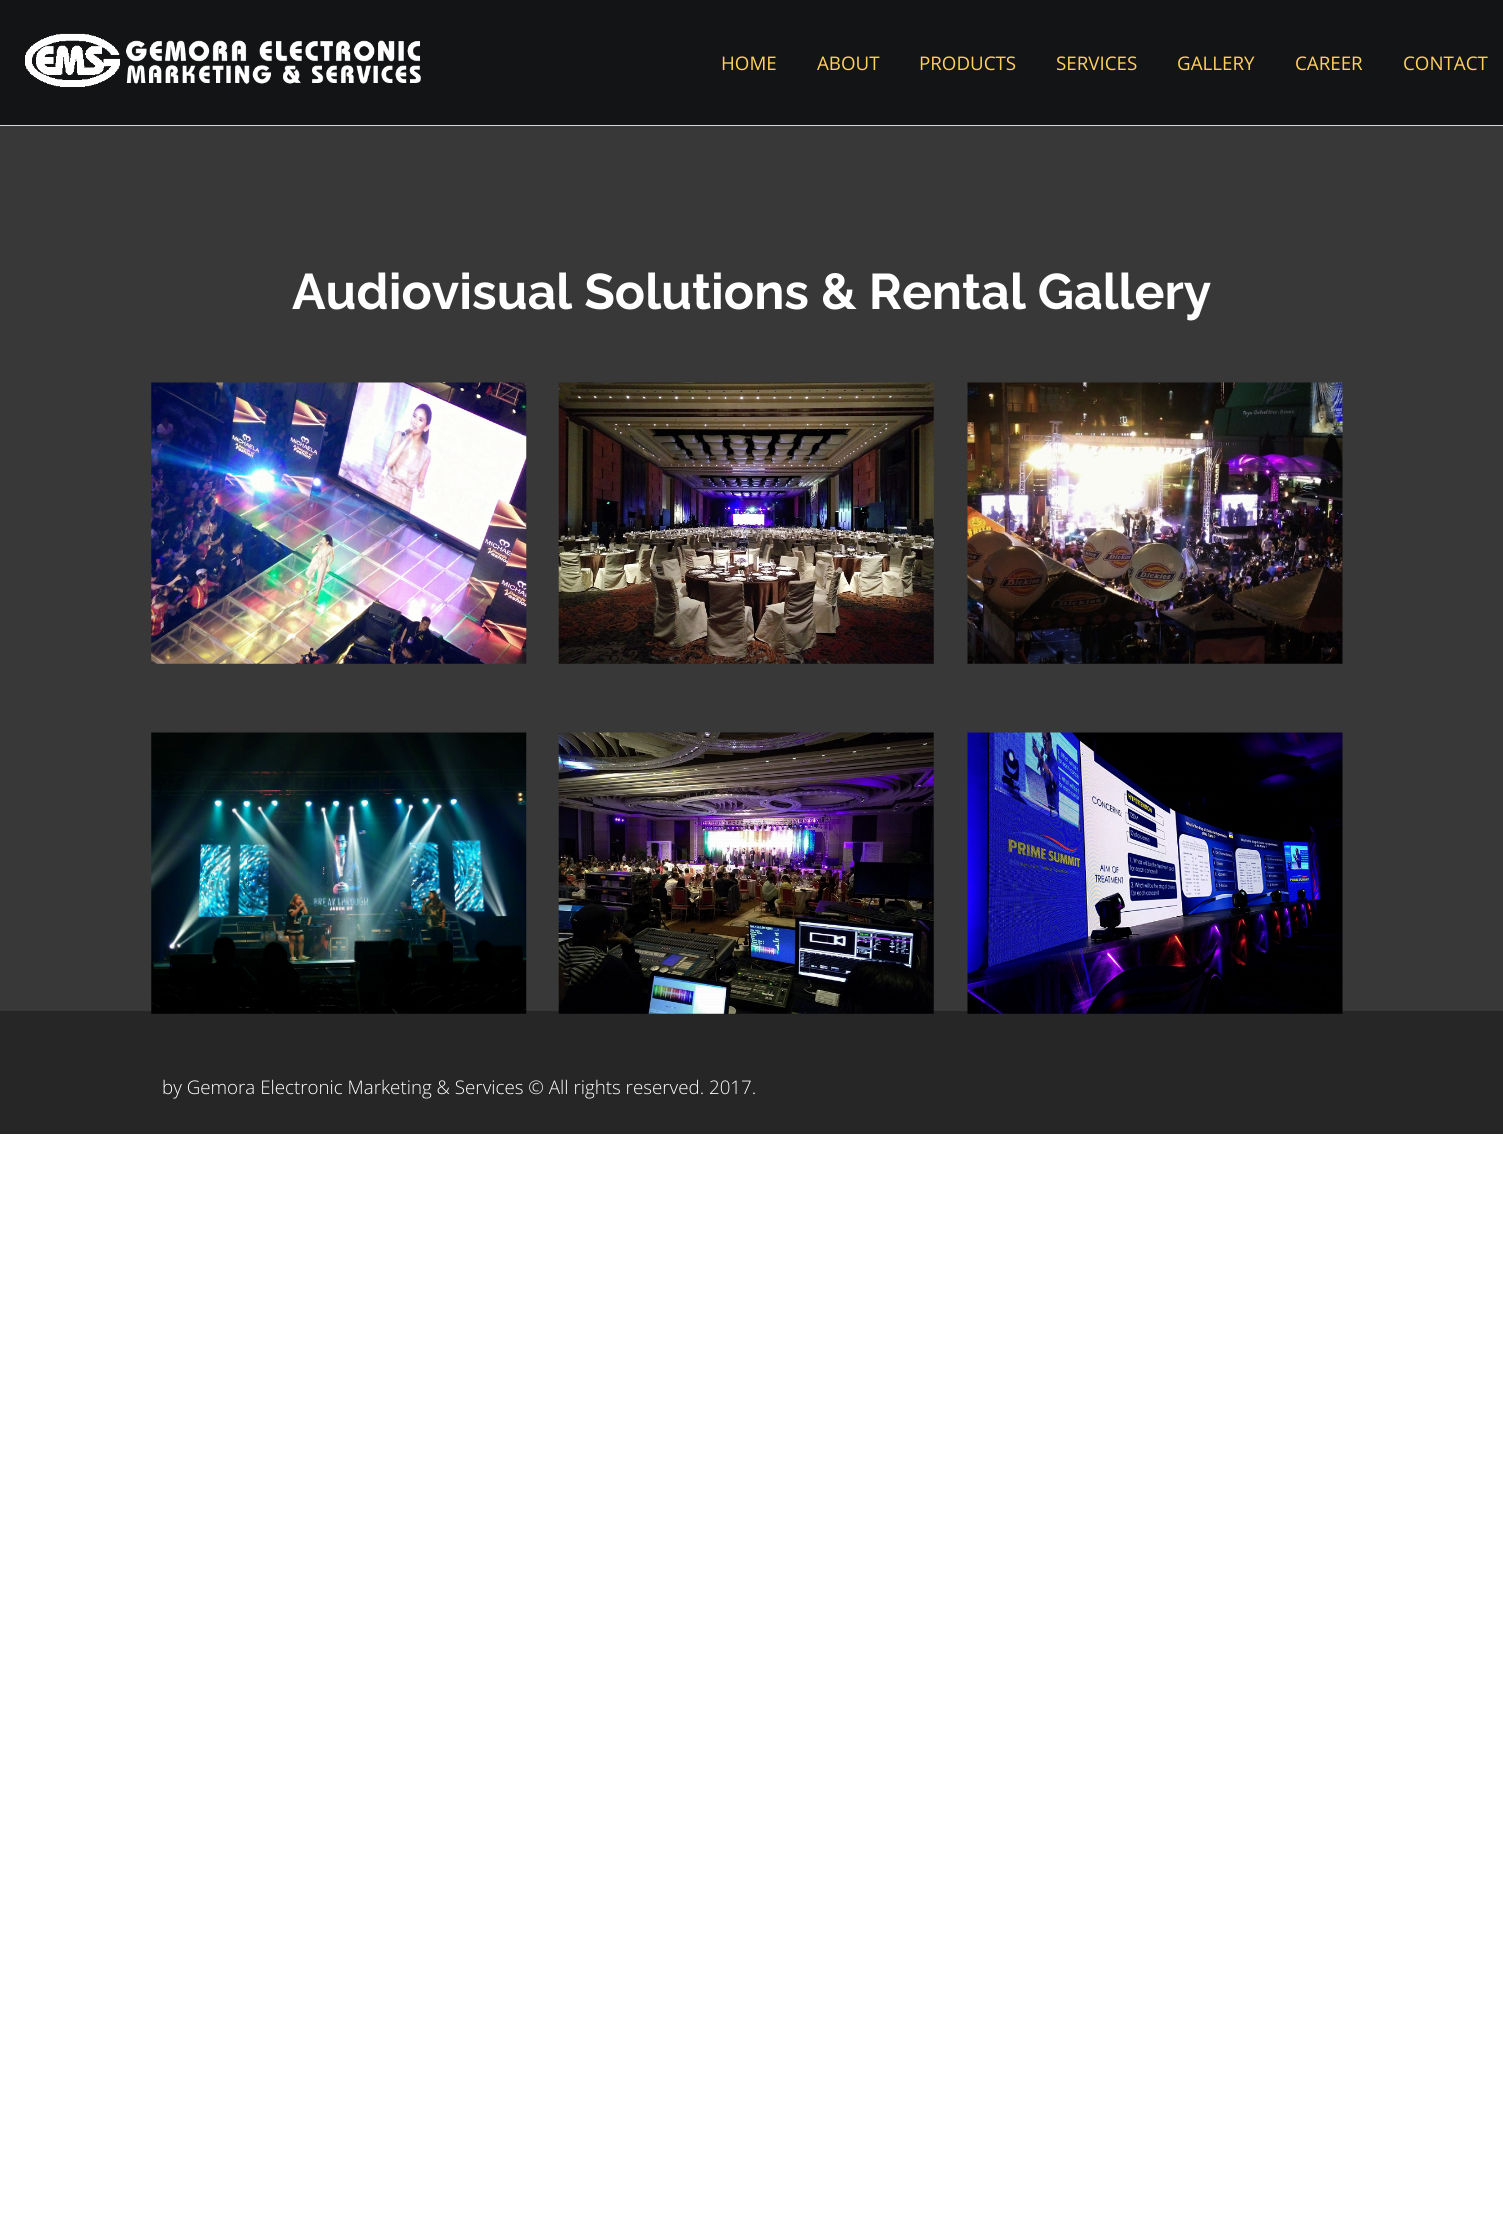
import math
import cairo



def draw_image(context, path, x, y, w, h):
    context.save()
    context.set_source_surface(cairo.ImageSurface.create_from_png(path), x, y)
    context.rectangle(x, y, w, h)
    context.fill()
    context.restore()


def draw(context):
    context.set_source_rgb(1, 1, 1)
    context.paint()
    context.set_source_rgb(19 / 255, 20 / 255, 21 / 255)
    context.rectangle(0, 0, 1503, 125)
    context.fill()
    context.set_source_rgb(216 / 255, 216 / 255, 216 / 255)
    context.rectangle(0, 125, 1503, 1)
    context.fill()
    draw_image(context, "images/1.png", 25, 33, 396, 54)
    context.set_source_rgb(56 / 255, 56 / 255, 56 / 255)
    context.rectangle(0, 126, 1503, 885)
    context.fill()
    draw_image(context, "images/2.png", 151, 382, 376, 282)
    draw_image(context, "images/3.png", 558, 382, 376, 282)
    draw_image(context, "images/4.png", 967, 382, 376, 282)
    context.set_source_rgb(38 / 255, 38 / 255, 38 / 255)
    context.rectangle(0, 1011, 1503, 123)
    context.fill()
    draw_image(context, "images/5.png", 151, 732, 376, 282)
    draw_image(context, "images/6.png", 558, 732, 376, 282)
    draw_image(context, "images/7.png", 967, 732, 376, 282)
    context.select_font_face("Open Sans")
    context.set_font_size(18.75)
    context.set_source_rgb(1, 209 / 255, 92 / 255)
    context.move_to(721, 70)
    context.show_text("HOME")
    context.move_to(817, 70)
    context.show_text("ABOUT")
    context.move_to(919, 70)
    context.show_text("PRODUCTS")
    context.move_to(1056, 70)
    context.show_text("SERVICES")
    context.move_to(1177, 70)
    context.show_text("GALLERY")
    context.move_to(1295, 70)
    context.show_text("CAREER")
    context.move_to(1403, 70)
    context.show_text("CONTACT")
    context.select_font_face("Raleway", cairo.FontSlant.NORMAL, cairo.FontWeight.BOLD)
    context.set_font_size(50)
    context.set_source_rgb(1, 1, 1)
    context.move_to(292, 309)
    context.show_text("Audiovisual Solutions & Rental Gallery")
    context.select_font_face("Open Sans Light")
    context.set_font_size(18.75)
    context.move_to(162, 1094)
    context.show_text("by Gemora Electronic Marketing & Services © All rights reserved. 2017.")


surface = cairo.ImageSurface(cairo.Format.RGB24, 1503, 2221)
context = cairo.Context(surface)
options = cairo.FontOptions()
options.set_hint_metrics(cairo.HintMetrics.OFF)
options.set_hint_style(cairo.HintStyle.NONE)
context.set_font_options(options)
context.set_miter_limit(4)
draw(context)
surface.write_to_png("out.png")
